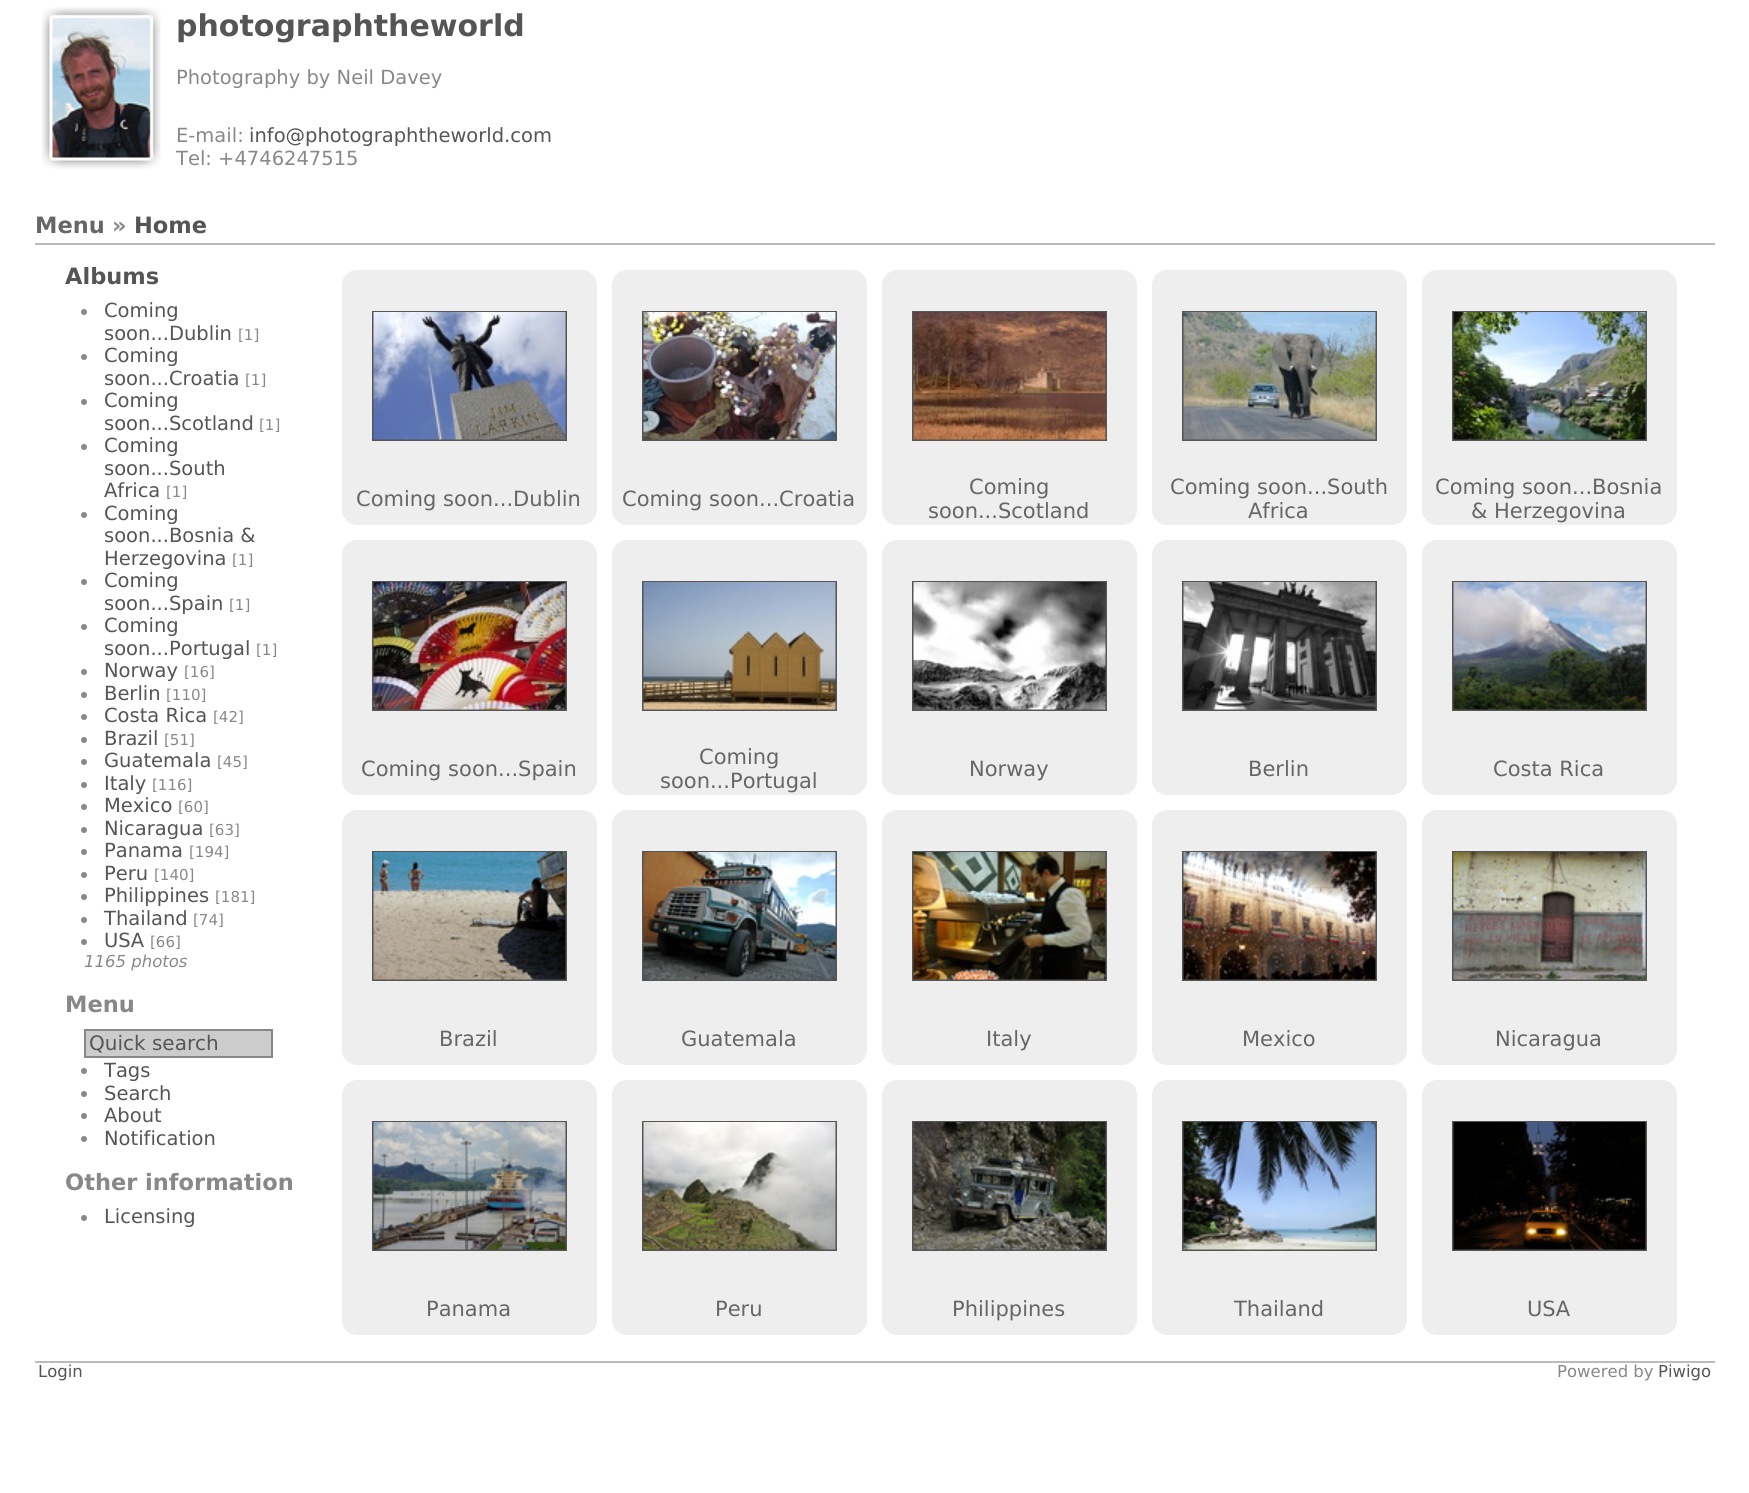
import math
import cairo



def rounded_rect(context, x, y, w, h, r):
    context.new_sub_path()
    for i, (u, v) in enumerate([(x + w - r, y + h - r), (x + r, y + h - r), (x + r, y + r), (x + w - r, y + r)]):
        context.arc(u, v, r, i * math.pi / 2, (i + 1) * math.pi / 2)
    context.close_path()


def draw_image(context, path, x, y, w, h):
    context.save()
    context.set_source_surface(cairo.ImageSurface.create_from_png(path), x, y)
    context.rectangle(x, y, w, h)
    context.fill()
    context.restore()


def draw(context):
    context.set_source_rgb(1, 1, 1)
    context.paint()
    draw_image(context, "images/1.png", 42, 7, 119, 162)
    context.set_source_rgb(187 / 255, 187 / 255, 187 / 255)
    context.rectangle(35, 243, 1680, 2)
    context.fill()
    context.rectangle(35, 1361, 1680, 2)
    context.fill()
    context.set_source_rgb(136 / 255, 136 / 255, 136 / 255)
    context.arc(84, 312, 3, 0, 2 * math.pi)
    context.fill()
    context.arc(84, 357, 3, 0, 2 * math.pi)
    context.fill()
    context.arc(84, 402, 3, 0, 2 * math.pi)
    context.fill()
    context.arc(84, 447, 3, 0, 2 * math.pi)
    context.fill()
    context.arc(84, 515, 3, 0, 2 * math.pi)
    context.fill()
    context.arc(84, 582, 3, 0, 2 * math.pi)
    context.fill()
    context.arc(84, 627, 3, 0, 2 * math.pi)
    context.fill()
    context.arc(84, 672, 3, 0, 2 * math.pi)
    context.fill()
    context.arc(84, 695, 3, 0, 2 * math.pi)
    context.fill()
    context.arc(84, 717, 3, 0, 2 * math.pi)
    context.fill()
    context.arc(84, 740, 3, 0, 2 * math.pi)
    context.fill()
    context.arc(84, 762, 3, 0, 2 * math.pi)
    context.fill()
    context.arc(84, 785, 3, 0, 2 * math.pi)
    context.fill()
    context.arc(84, 807, 3, 0, 2 * math.pi)
    context.fill()
    context.arc(84, 830, 3, 0, 2 * math.pi)
    context.fill()
    context.arc(84, 852, 3, 0, 2 * math.pi)
    context.fill()
    context.arc(84, 875, 3, 0, 2 * math.pi)
    context.fill()
    context.arc(84, 897, 3, 0, 2 * math.pi)
    context.fill()
    context.arc(84, 920, 3, 0, 2 * math.pi)
    context.fill()
    context.arc(84, 942, 3, 0, 2 * math.pi)
    context.fill()
    context.set_source_rgb(204 / 255, 204 / 255, 204 / 255)
    context.rectangle(85, 1030, 187, 27)
    context.fill_preserve()
    context.set_source_rgb(136 / 255, 136 / 255, 136 / 255)
    context.stroke()
    context.arc(84, 1071, 3, 0, 2 * math.pi)
    context.fill()
    context.arc(84, 1094, 3, 0, 2 * math.pi)
    context.fill()
    context.arc(84, 1116, 3, 0, 2 * math.pi)
    context.fill()
    context.arc(84, 1139, 3, 0, 2 * math.pi)
    context.fill()
    context.arc(84, 1218, 3, 0, 2 * math.pi)
    context.fill()
    context.set_source_rgb(238 / 255, 238 / 255, 238 / 255)
    rounded_rect(context, 342, 270, 255, 255, 15)
    context.fill()
    context.rectangle(373, 312, 193, 128)
    context.set_source_rgb(85 / 255, 85 / 255, 85 / 255)
    context.stroke()
    draw_image(context, "images/2.png", 373, 312, 193, 128)
    context.set_source_rgb(238 / 255, 238 / 255, 238 / 255)
    rounded_rect(context, 612, 270, 255, 255, 15)
    context.fill()
    context.rectangle(643, 312, 193, 128)
    context.set_source_rgb(85 / 255, 85 / 255, 85 / 255)
    context.stroke()
    draw_image(context, "images/3.png", 643, 312, 193, 128)
    context.set_source_rgb(238 / 255, 238 / 255, 238 / 255)
    rounded_rect(context, 882, 270, 255, 255, 15)
    context.fill()
    context.rectangle(913, 312, 193, 128)
    context.set_source_rgb(85 / 255, 85 / 255, 85 / 255)
    context.stroke()
    draw_image(context, "images/4.png", 913, 312, 193, 128)
    context.set_source_rgb(238 / 255, 238 / 255, 238 / 255)
    rounded_rect(context, 1152, 270, 255, 255, 15)
    context.fill()
    context.rectangle(1183, 312, 193, 128)
    context.set_source_rgb(85 / 255, 85 / 255, 85 / 255)
    context.stroke()
    draw_image(context, "images/5.png", 1183, 312, 193, 128)
    context.set_source_rgb(238 / 255, 238 / 255, 238 / 255)
    rounded_rect(context, 1422, 270, 255, 255, 15)
    context.fill()
    context.rectangle(1453, 312, 193, 128)
    context.set_source_rgb(85 / 255, 85 / 255, 85 / 255)
    context.stroke()
    draw_image(context, "images/6.png", 1453, 312, 193, 128)
    context.set_source_rgb(238 / 255, 238 / 255, 238 / 255)
    rounded_rect(context, 342, 540, 255, 255, 15)
    context.fill()
    context.rectangle(373, 582, 193, 128)
    context.set_source_rgb(85 / 255, 85 / 255, 85 / 255)
    context.stroke()
    draw_image(context, "images/7.png", 373, 582, 193, 128)
    context.set_source_rgb(238 / 255, 238 / 255, 238 / 255)
    rounded_rect(context, 612, 540, 255, 255, 15)
    context.fill()
    context.rectangle(643, 582, 193, 128)
    context.set_source_rgb(85 / 255, 85 / 255, 85 / 255)
    context.stroke()
    draw_image(context, "images/8.png", 643, 582, 193, 128)
    context.set_source_rgb(238 / 255, 238 / 255, 238 / 255)
    rounded_rect(context, 882, 540, 255, 255, 15)
    context.fill()
    context.rectangle(913, 582, 193, 128)
    context.set_source_rgb(85 / 255, 85 / 255, 85 / 255)
    context.stroke()
    draw_image(context, "images/9.png", 913, 582, 193, 128)
    context.set_source_rgb(238 / 255, 238 / 255, 238 / 255)
    rounded_rect(context, 1152, 540, 255, 255, 15)
    context.fill()
    context.rectangle(1183, 582, 193, 128)
    context.set_source_rgb(85 / 255, 85 / 255, 85 / 255)
    context.stroke()
    draw_image(context, "images/10.png", 1183, 582, 193, 128)
    context.set_source_rgb(238 / 255, 238 / 255, 238 / 255)
    rounded_rect(context, 1422, 540, 255, 255, 15)
    context.fill()
    context.rectangle(1453, 582, 193, 128)
    context.set_source_rgb(85 / 255, 85 / 255, 85 / 255)
    context.stroke()
    draw_image(context, "images/11.png", 1453, 582, 193, 128)
    context.set_source_rgb(238 / 255, 238 / 255, 238 / 255)
    rounded_rect(context, 342, 810, 255, 255, 15)
    context.fill()
    context.rectangle(373, 852, 193, 128)
    context.set_source_rgb(85 / 255, 85 / 255, 85 / 255)
    context.stroke()
    draw_image(context, "images/12.png", 373, 852, 193, 128)
    context.set_source_rgb(238 / 255, 238 / 255, 238 / 255)
    rounded_rect(context, 612, 810, 255, 255, 15)
    context.fill()
    context.rectangle(643, 852, 193, 128)
    context.set_source_rgb(85 / 255, 85 / 255, 85 / 255)
    context.stroke()
    draw_image(context, "images/13.png", 643, 852, 193, 128)
    context.set_source_rgb(238 / 255, 238 / 255, 238 / 255)
    rounded_rect(context, 882, 810, 255, 255, 15)
    context.fill()
    context.rectangle(913, 852, 193, 128)
    context.set_source_rgb(85 / 255, 85 / 255, 85 / 255)
    context.stroke()
    draw_image(context, "images/14.png", 913, 852, 193, 128)
    context.set_source_rgb(238 / 255, 238 / 255, 238 / 255)
    rounded_rect(context, 1152, 810, 255, 255, 15)
    context.fill()
    context.rectangle(1183, 852, 193, 128)
    context.set_source_rgb(85 / 255, 85 / 255, 85 / 255)
    context.stroke()
    draw_image(context, "images/15.png", 1183, 852, 193, 128)
    context.set_source_rgb(238 / 255, 238 / 255, 238 / 255)
    rounded_rect(context, 1422, 810, 255, 255, 15)
    context.fill()
    context.rectangle(1453, 852, 193, 128)
    context.set_source_rgb(85 / 255, 85 / 255, 85 / 255)
    context.stroke()
    draw_image(context, "images/16.png", 1453, 852, 193, 128)
    context.set_source_rgb(238 / 255, 238 / 255, 238 / 255)
    rounded_rect(context, 342, 1080, 255, 255, 15)
    context.fill()
    context.rectangle(373, 1122, 193, 128)
    context.set_source_rgb(85 / 255, 85 / 255, 85 / 255)
    context.stroke()
    draw_image(context, "images/17.png", 373, 1122, 193, 128)
    context.set_source_rgb(238 / 255, 238 / 255, 238 / 255)
    rounded_rect(context, 612, 1080, 255, 255, 15)
    context.fill()
    context.rectangle(643, 1122, 193, 128)
    context.set_source_rgb(85 / 255, 85 / 255, 85 / 255)
    context.stroke()
    draw_image(context, "images/18.png", 643, 1122, 193, 128)
    context.set_source_rgb(238 / 255, 238 / 255, 238 / 255)
    rounded_rect(context, 882, 1080, 255, 255, 15)
    context.fill()
    context.rectangle(913, 1122, 193, 128)
    context.set_source_rgb(85 / 255, 85 / 255, 85 / 255)
    context.stroke()
    draw_image(context, "images/19.png", 913, 1122, 193, 128)
    context.set_source_rgb(238 / 255, 238 / 255, 238 / 255)
    rounded_rect(context, 1152, 1080, 255, 255, 15)
    context.fill()
    context.rectangle(1183, 1122, 193, 128)
    context.set_source_rgb(85 / 255, 85 / 255, 85 / 255)
    context.stroke()
    draw_image(context, "images/20.png", 1183, 1122, 193, 128)
    context.set_source_rgb(238 / 255, 238 / 255, 238 / 255)
    rounded_rect(context, 1422, 1080, 255, 255, 15)
    context.fill()
    context.rectangle(1453, 1122, 193, 128)
    context.set_source_rgb(85 / 255, 85 / 255, 85 / 255)
    context.stroke()
    draw_image(context, "images/21.png", 1453, 1122, 193, 128)
    context.select_font_face("DejaVu Sans", cairo.FontSlant.NORMAL, cairo.FontWeight.BOLD)
    context.set_font_size(30)
    context.move_to(176, 36)
    context.show_text("photographtheworld")
    context.select_font_face("DejaVu Sans")
    context.set_font_size(19.5)
    context.set_source_rgb(136 / 255, 136 / 255, 136 / 255)
    context.move_to(176, 84)
    context.show_text("Photography by Neil Davey")
    context.move_to(176, 142)
    context.show_text("E-mail:")
    context.set_source_rgb(85 / 255, 85 / 255, 85 / 255)
    context.move_to(249, 142)
    context.show_text("info@photographtheworld.com")
    context.set_source_rgb(136 / 255, 136 / 255, 136 / 255)
    context.move_to(176, 165)
    context.show_text("Tel: +4746247515")
    context.select_font_face("DejaVu Sans", cairo.FontSlant.NORMAL, cairo.FontWeight.BOLD)
    context.set_font_size(22.5)
    context.set_source_rgb(102 / 255, 102 / 255, 102 / 255)
    context.move_to(35, 233)
    context.show_text("Menu")
    context.set_source_rgb(136 / 255, 136 / 255, 136 / 255)
    context.move_to(112, 233)
    context.show_text("»")
    context.set_source_rgb(85 / 255, 85 / 255, 85 / 255)
    context.move_to(134, 233)
    context.show_text("Home")
    context.move_to(65, 284)
    context.show_text("Albums")
    context.select_font_face("DejaVu Sans")
    context.set_font_size(19.5)
    context.move_to(104, 317)
    context.show_text("Coming")
    context.move_to(104, 340)
    context.show_text("soon...Dublin")
    context.set_font_size(15)
    context.set_source_rgb(136 / 255, 136 / 255, 136 / 255)
    context.move_to(238, 340)
    context.show_text("[1]")
    context.set_font_size(19.5)
    context.set_source_rgb(85 / 255, 85 / 255, 85 / 255)
    context.move_to(104, 362)
    context.show_text("Coming")
    context.move_to(104, 385)
    context.show_text("soon...Croatia")
    context.set_font_size(15)
    context.set_source_rgb(136 / 255, 136 / 255, 136 / 255)
    context.move_to(245, 385)
    context.show_text("[1]")
    context.set_font_size(19.5)
    context.set_source_rgb(85 / 255, 85 / 255, 85 / 255)
    context.move_to(104, 407)
    context.show_text("Coming")
    context.move_to(104, 430)
    context.show_text("soon...Scotland")
    context.set_font_size(15)
    context.set_source_rgb(136 / 255, 136 / 255, 136 / 255)
    context.move_to(259, 430)
    context.show_text("[1]")
    context.set_font_size(19.5)
    context.set_source_rgb(85 / 255, 85 / 255, 85 / 255)
    context.move_to(104, 452)
    context.show_text("Coming")
    context.move_to(104, 475)
    context.show_text("soon...South")
    context.move_to(104, 497)
    context.show_text("Africa")
    context.set_font_size(15)
    context.set_source_rgb(136 / 255, 136 / 255, 136 / 255)
    context.move_to(166, 497)
    context.show_text("[1]")
    context.set_font_size(19.5)
    context.set_source_rgb(85 / 255, 85 / 255, 85 / 255)
    context.move_to(104, 520)
    context.show_text("Coming")
    context.move_to(104, 542)
    context.show_text("soon...Bosnia &")
    context.move_to(104, 565)
    context.show_text("Herzegovina")
    context.set_font_size(15)
    context.set_source_rgb(136 / 255, 136 / 255, 136 / 255)
    context.move_to(232, 565)
    context.show_text("[1]")
    context.set_font_size(19.5)
    context.set_source_rgb(85 / 255, 85 / 255, 85 / 255)
    context.move_to(104, 587)
    context.show_text("Coming")
    context.move_to(104, 610)
    context.show_text("soon...Spain")
    context.set_font_size(15)
    context.set_source_rgb(136 / 255, 136 / 255, 136 / 255)
    context.move_to(229, 610)
    context.show_text("[1]")
    context.set_font_size(19.5)
    context.set_source_rgb(85 / 255, 85 / 255, 85 / 255)
    context.move_to(104, 632)
    context.show_text("Coming")
    context.move_to(104, 655)
    context.show_text("soon...Portugal")
    context.set_font_size(15)
    context.set_source_rgb(136 / 255, 136 / 255, 136 / 255)
    context.move_to(256, 655)
    context.show_text("[1]")
    context.set_font_size(19.5)
    context.set_source_rgb(85 / 255, 85 / 255, 85 / 255)
    context.move_to(104, 677)
    context.show_text("Norway")
    context.set_font_size(15)
    context.set_source_rgb(136 / 255, 136 / 255, 136 / 255)
    context.move_to(184, 677)
    context.show_text("[16]")
    context.set_font_size(19.5)
    context.set_source_rgb(85 / 255, 85 / 255, 85 / 255)
    context.move_to(104, 700)
    context.show_text("Berlin")
    context.set_font_size(15)
    context.set_source_rgb(136 / 255, 136 / 255, 136 / 255)
    context.move_to(166, 700)
    context.show_text("[110]")
    context.set_font_size(19.5)
    context.set_source_rgb(85 / 255, 85 / 255, 85 / 255)
    context.move_to(104, 722)
    context.show_text("Costa Rica")
    context.set_font_size(15)
    context.set_source_rgb(136 / 255, 136 / 255, 136 / 255)
    context.move_to(213, 722)
    context.show_text("[42]")
    context.set_font_size(19.5)
    context.set_source_rgb(85 / 255, 85 / 255, 85 / 255)
    context.move_to(104, 745)
    context.show_text("Brazil")
    context.set_font_size(15)
    context.set_source_rgb(136 / 255, 136 / 255, 136 / 255)
    context.move_to(164, 745)
    context.show_text("[51]")
    context.set_font_size(19.5)
    context.set_source_rgb(85 / 255, 85 / 255, 85 / 255)
    context.move_to(104, 767)
    context.show_text("Guatemala")
    context.set_font_size(15)
    context.set_source_rgb(136 / 255, 136 / 255, 136 / 255)
    context.move_to(217, 767)
    context.show_text("[45]")
    context.set_font_size(19.5)
    context.set_source_rgb(85 / 255, 85 / 255, 85 / 255)
    context.move_to(104, 790)
    context.show_text("Italy")
    context.set_font_size(15)
    context.set_source_rgb(136 / 255, 136 / 255, 136 / 255)
    context.move_to(152, 790)
    context.show_text("[116]")
    context.set_font_size(19.5)
    context.set_source_rgb(85 / 255, 85 / 255, 85 / 255)
    context.move_to(104, 812)
    context.show_text("Mexico")
    context.set_font_size(15)
    context.set_source_rgb(136 / 255, 136 / 255, 136 / 255)
    context.move_to(178, 812)
    context.show_text("[60]")
    context.set_font_size(19.5)
    context.set_source_rgb(85 / 255, 85 / 255, 85 / 255)
    context.move_to(104, 835)
    context.show_text("Nicaragua")
    context.set_font_size(15)
    context.set_source_rgb(136 / 255, 136 / 255, 136 / 255)
    context.move_to(209, 835)
    context.show_text("[63]")
    context.set_font_size(19.5)
    context.set_source_rgb(85 / 255, 85 / 255, 85 / 255)
    context.move_to(104, 857)
    context.show_text("Panama")
    context.set_font_size(15)
    context.set_source_rgb(136 / 255, 136 / 255, 136 / 255)
    context.move_to(189, 857)
    context.show_text("[194]")
    context.set_font_size(19.5)
    context.set_source_rgb(85 / 255, 85 / 255, 85 / 255)
    context.move_to(104, 880)
    context.show_text("Peru")
    context.set_font_size(15)
    context.set_source_rgb(136 / 255, 136 / 255, 136 / 255)
    context.move_to(154, 880)
    context.show_text("[140]")
    context.set_font_size(19.5)
    context.set_source_rgb(85 / 255, 85 / 255, 85 / 255)
    context.move_to(104, 902)
    context.show_text("Philippines")
    context.set_font_size(15)
    context.set_source_rgb(136 / 255, 136 / 255, 136 / 255)
    context.move_to(215, 902)
    context.show_text("[181]")
    context.set_font_size(19.5)
    context.set_source_rgb(85 / 255, 85 / 255, 85 / 255)
    context.move_to(104, 925)
    context.show_text("Thailand")
    context.set_font_size(15)
    context.set_source_rgb(136 / 255, 136 / 255, 136 / 255)
    context.move_to(193, 925)
    context.show_text("[74]")
    context.set_font_size(19.5)
    context.set_source_rgb(85 / 255, 85 / 255, 85 / 255)
    context.move_to(104, 947)
    context.show_text("USA")
    context.set_font_size(15)
    context.set_source_rgb(136 / 255, 136 / 255, 136 / 255)
    context.move_to(150, 947)
    context.show_text("[66]")
    context.select_font_face("DejaVu Sans", cairo.FontSlant.ITALIC)
    context.set_font_size(16.5)
    context.move_to(84, 967)
    context.show_text("1165 photos")
    context.select_font_face("DejaVu Sans", cairo.FontSlant.NORMAL, cairo.FontWeight.BOLD)
    context.set_font_size(22.5)
    context.move_to(65, 1012)
    context.show_text("Menu")
    context.select_font_face("DejaVu Sans")
    context.set_font_size(20)
    context.set_source_rgb(85 / 255, 85 / 255, 85 / 255)
    context.move_to(89, 1050)
    context.show_text("Quick search")
    context.set_font_size(19.5)
    context.move_to(104, 1077)
    context.show_text("Tags")
    context.move_to(104, 1100)
    context.show_text("Search")
    context.move_to(104, 1122)
    context.show_text("About")
    context.move_to(104, 1145)
    context.show_text("Notification")
    context.select_font_face("DejaVu Sans", cairo.FontSlant.NORMAL, cairo.FontWeight.BOLD)
    context.set_font_size(22.5)
    context.set_source_rgb(136 / 255, 136 / 255, 136 / 255)
    context.move_to(65, 1190)
    context.show_text("Other information")
    context.select_font_face("DejaVu Sans")
    context.set_font_size(19.5)
    context.set_source_rgb(85 / 255, 85 / 255, 85 / 255)
    context.move_to(104, 1223)
    context.show_text("Licensing")
    context.set_font_size(21)
    context.set_source_rgb(102 / 255, 102 / 255, 102 / 255)
    context.move_to(356, 506)
    context.show_text("Coming soon...Dublin")
    context.move_to(622, 506)
    context.show_text("Coming soon...Croatia")
    context.move_to(969, 494)
    context.show_text("Coming")
    context.move_to(928, 518)
    context.show_text("soon...Scotland")
    context.move_to(1170, 494)
    context.show_text("Coming soon...South")
    context.move_to(1248, 518)
    context.show_text("Africa")
    context.move_to(1435, 494)
    context.show_text("Coming soon...Bosnia")
    context.move_to(1471, 518)
    context.show_text("& Herzegovina")
    context.move_to(361, 776)
    context.show_text("Coming soon...Spain")
    context.move_to(699, 764)
    context.show_text("Coming")
    context.move_to(660, 788)
    context.show_text("soon...Portugal")
    context.move_to(969, 776)
    context.show_text("Norway")
    context.move_to(1248, 776)
    context.show_text("Berlin")
    context.move_to(1493, 776)
    context.show_text("Costa Rica")
    context.move_to(439, 1046)
    context.show_text("Brazil")
    context.move_to(681, 1046)
    context.show_text("Guatemala")
    context.move_to(986, 1046)
    context.show_text("Italy")
    context.move_to(1242, 1046)
    context.show_text("Mexico")
    context.move_to(1495, 1046)
    context.show_text("Nicaragua")
    context.move_to(426, 1316)
    context.show_text("Panama")
    context.move_to(715, 1316)
    context.show_text("Peru")
    context.move_to(952, 1316)
    context.show_text("Philippines")
    context.move_to(1234, 1316)
    context.show_text("Thailand")
    context.move_to(1527, 1316)
    context.show_text("USA")
    context.set_font_size(16.5)
    context.set_source_rgb(85 / 255, 85 / 255, 85 / 255)
    context.move_to(38, 1377)
    context.show_text("Login")
    context.set_source_rgb(136 / 255, 136 / 255, 136 / 255)
    context.move_to(1557, 1377)
    context.show_text("Powered by")
    context.set_source_rgb(85 / 255, 85 / 255, 85 / 255)
    context.move_to(1658, 1377)
    context.show_text("Piwigo")


surface = cairo.ImageSurface(cairo.Format.RGB24, 1749, 1493)
context = cairo.Context(surface)
options = cairo.FontOptions()
options.set_hint_metrics(cairo.HintMetrics.OFF)
options.set_hint_style(cairo.HintStyle.NONE)
context.set_font_options(options)
context.set_miter_limit(4)
draw(context)
surface.write_to_png("out.png")
